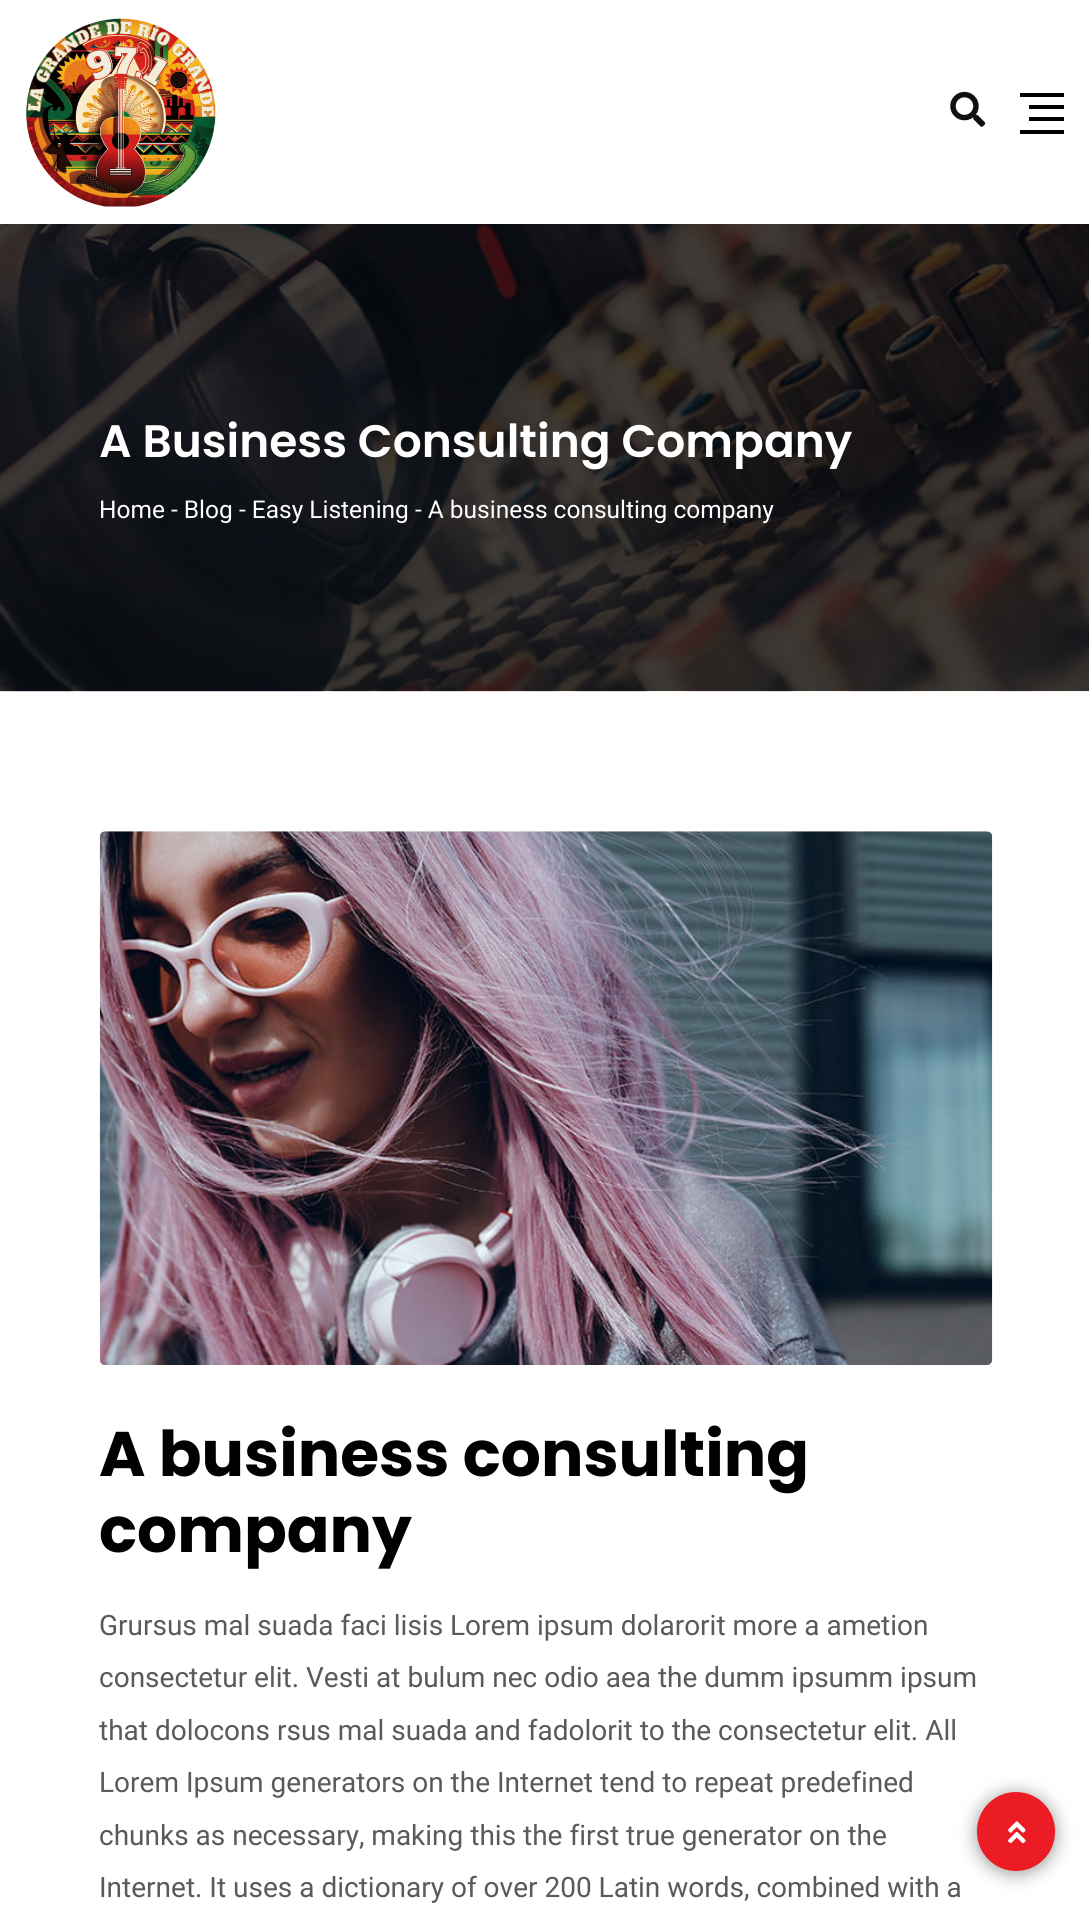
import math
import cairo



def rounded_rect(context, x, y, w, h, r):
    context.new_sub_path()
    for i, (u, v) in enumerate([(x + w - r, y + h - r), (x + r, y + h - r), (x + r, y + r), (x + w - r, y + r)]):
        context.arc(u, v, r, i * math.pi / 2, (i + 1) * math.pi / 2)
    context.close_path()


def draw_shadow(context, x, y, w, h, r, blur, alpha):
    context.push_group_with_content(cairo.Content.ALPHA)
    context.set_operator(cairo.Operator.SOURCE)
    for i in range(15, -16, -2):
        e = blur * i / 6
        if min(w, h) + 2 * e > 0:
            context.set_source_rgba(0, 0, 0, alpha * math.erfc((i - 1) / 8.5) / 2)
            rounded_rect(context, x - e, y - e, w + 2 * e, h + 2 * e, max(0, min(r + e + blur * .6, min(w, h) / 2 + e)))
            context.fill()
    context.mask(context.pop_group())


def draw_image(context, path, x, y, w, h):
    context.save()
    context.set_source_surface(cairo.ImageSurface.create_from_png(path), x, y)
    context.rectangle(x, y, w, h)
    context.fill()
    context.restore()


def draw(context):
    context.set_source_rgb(1, 1, 1)
    context.paint()
    draw_image(context, "images/1.png", 26, 18, 190, 189)
    draw_image(context, "images/2.png", 950, 91, 36, 36)
    context.set_source_rgb(0, 0, 0)
    context.rectangle(1020, 93, 44, 4)
    context.fill()
    context.rectangle(1029, 105, 35, 4)
    context.fill()
    context.rectangle(1029, 117, 35, 4)
    context.fill()
    context.rectangle(1020, 130, 44, 4)
    context.fill()
    draw_image(context, "images/3.png", 0, 224, 1089, 468)
    draw_image(context, "images/4.png", 99, 831, 894, 534)
    context.set_source_rgb(0, 0, 0)
    draw_shadow(context, 977, 1794, 78, 79, 39, 9, 0.4)
    context.set_source_rgb(236 / 255, 28 / 255, 36 / 255)
    rounded_rect(context, 979, 1794, 74, 75, 37)
    context.fill_preserve()
    context.set_line_width(4)
    context.stroke()
    draw_image(context, "images/5.png", 1008, 1821, 18, 23)
    context.select_font_face("Poppins SemiBold")
    context.set_font_size(45.5)
    context.set_source_rgb(1, 1, 1)
    context.move_to(99, 457)
    context.show_text("A Business Consulting Company")
    context.select_font_face("Roboto")
    context.set_font_size(24.5)
    context.move_to(99, 518)
    context.show_text("Home - Blog - Easy Listening - A business consulting company")
    context.select_font_face("Poppins", cairo.FontSlant.NORMAL, cairo.FontWeight.BOLD)
    context.set_font_size(63)
    context.set_source_rgb(0, 0, 0)
    context.move_to(99, 1476)
    context.show_text("A business consulting")
    context.move_to(99, 1552)
    context.show_text("company")
    context.select_font_face("Roboto")
    context.set_font_size(28)
    context.set_source_rgb(90 / 255, 90 / 255, 90 / 255)
    context.move_to(99, 1635)
    context.show_text("Grursus mal suada faci lisis Lorem ipsum dolarorit more a ametion")
    context.move_to(99, 1687)
    context.show_text("consectetur elit. Vesti at bulum nec odio aea the dumm ipsumm ipsum")
    context.move_to(99, 1740)
    context.show_text("that dolocons rsus mal suada and fadolorit to the consectetur elit. All")
    context.move_to(99, 1792)
    context.show_text("Lorem Ipsum generators on the Internet tend to repeat predefined")
    context.move_to(99, 1845)
    context.show_text("chunks as necessary, making this the first true generator on the")
    context.move_to(99, 1897)
    context.show_text("Internet. It uses a dictionary of over 200 Latin words, combined with a")


surface = cairo.ImageSurface(cairo.Format.RGB24, 1089, 1914)
context = cairo.Context(surface)
options = cairo.FontOptions()
options.set_hint_metrics(cairo.HintMetrics.OFF)
options.set_hint_style(cairo.HintStyle.NONE)
context.set_font_options(options)
context.set_miter_limit(4)
draw(context)
surface.write_to_png("out.png")
